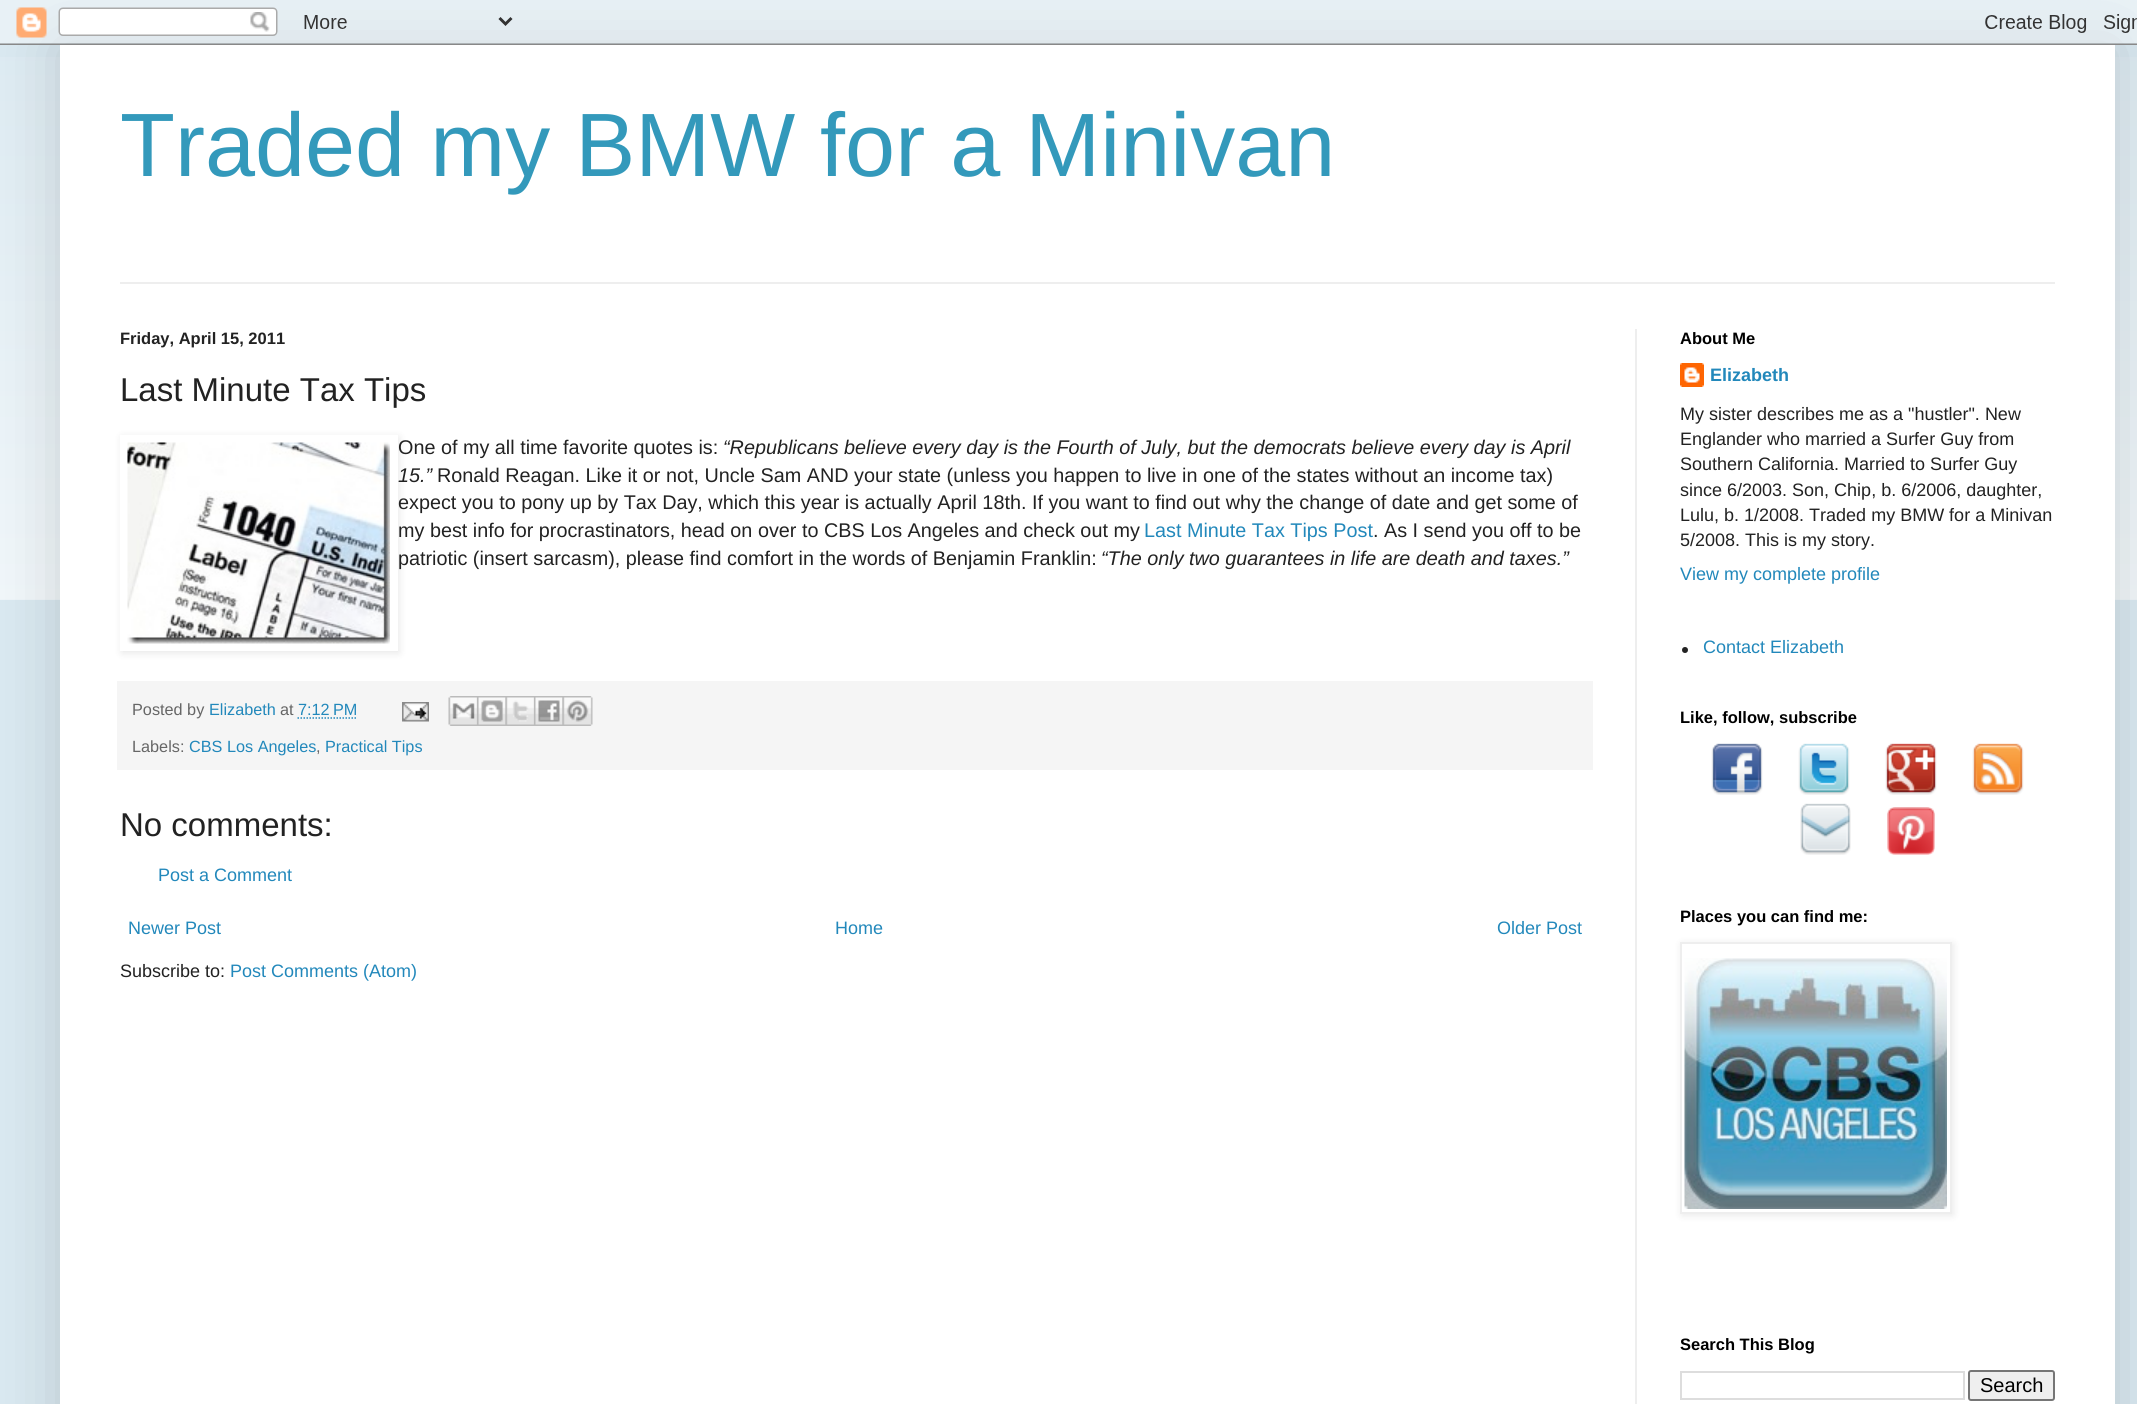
import math
import cairo



def rounded_rect(context, x, y, w, h, r):
    context.new_sub_path()
    for i, (u, v) in enumerate([(x + w - r, y + h - r), (x + r, y + h - r), (x + r, y + r), (x + w - r, y + r)]):
        context.arc(u, v, r, i * math.pi / 2, (i + 1) * math.pi / 2)
    context.close_path()


def draw_shadow(context, x, y, w, h, r, blur, alpha):
    context.push_group_with_content(cairo.Content.ALPHA)
    context.set_operator(cairo.Operator.SOURCE)
    for i in range(15, -16, -2):
        e = blur * i / 6
        if min(w, h) + 2 * e > 0:
            context.set_source_rgba(0, 0, 0, alpha * math.erfc((i - 1) / 8.5) / 2)
            rounded_rect(context, x - e, y - e, w + 2 * e, h + 2 * e, max(0, min(r + e + blur * .6, min(w, h) / 2 + e)))
            context.fill()
    context.mask(context.pop_group())


def draw_image(context, path, x, y, w, h):
    context.save()
    context.set_source_surface(cairo.ImageSurface.create_from_png(path), x, y)
    context.rectangle(x, y, w, h)
    context.fill()
    context.restore()


def draw(context):
    context.set_source_rgb(217 / 255, 232 / 255, 240 / 255)
    context.paint()
    draw_image(context, "images/2.png", 0, 57, 2137, 543)
    context.set_source_rgb(0, 0, 0)
    draw_shadow(context, 60, 45, 2055, 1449, 0, 30, 0.15)
    draw_image(context, "images/1.png", 0, 0, 2137, 45)
    context.set_source_rgb(1, 1, 1)
    context.rectangle(60, 45, 2055, 1359)
    context.fill()
    context.set_source_rgb(238 / 255, 238 / 255, 238 / 255)
    context.rectangle(120, 282, 1935, 2)
    context.fill()
    context.rectangle(1635, 329, 2, 1075)
    context.fill()
    context.set_source_rgb(0, 0, 0)
    draw_shadow(context, 122, 437, 277, 216, 0, 4, 0.1)
    context.set_source_rgb(1, 1, 1)
    context.rectangle(120, 435, 278, 216)
    context.fill()
    draw_image(context, "images/3.png", 127, 442, 263, 202)
    context.set_source_rgb(245 / 255, 245 / 255, 245 / 255)
    context.rectangle(117, 681, 1476, 89)
    context.fill()
    context.new_path()
    context.move_to(297.5, 718)
    context.line_to(357, 718)
    context.set_source_rgb(34 / 255, 136 / 255, 187 / 255)
    context.set_line_width(1.5)
    context.set_dash([1.5, 1.5])
    context.stroke()
    draw_image(context, "images/4.png", 402, 702, 27, 20)
    draw_image(context, "images/5.png", 448, 696, 29, 30)
    draw_image(context, "images/6.png", 477, 696, 29, 30)
    draw_image(context, "images/7.png", 505, 696, 29, 30)
    draw_image(context, "images/8.png", 534, 696, 29, 30)
    draw_image(context, "images/9.png", 562, 696, 31, 30)
    draw_image(context, "images/10.png", 1680, 363, 24, 24)
    context.set_source_rgb(34 / 255, 34 / 255, 34 / 255)
    context.arc(1685, 650, 3, 0, 2 * math.pi)
    context.fill()
    draw_image(context, "images/11.png", 1711, 743, 52, 52)
    draw_image(context, "images/12.png", 1798, 743, 52, 52)
    draw_image(context, "images/13.png", 1885, 743, 52, 52)
    draw_image(context, "images/14.png", 1972, 743, 52, 52)
    draw_image(context, "images/15.png", 1800, 803, 51, 52)
    draw_image(context, "images/16.png", 1887, 807, 48, 48)
    context.set_source_rgb(0, 0, 0)
    draw_shadow(context, 1682, 944, 271, 271, 0, 4, 0.1)
    context.set_source_rgb(1, 1, 1)
    context.rectangle(1681, 943, 270, 270)
    context.fill_preserve()
    context.set_source_rgb(238 / 255, 238 / 255, 238 / 255)
    context.set_line_width(2)
    context.set_dash([])
    context.stroke()
    draw_image(context, "images/17.png", 1684, 958, 263, 251)
    context.rectangle(1681, 1372, 283, 27)
    context.set_source_rgb(221 / 255, 221 / 255, 221 / 255)
    context.stroke()
    context.set_source_rgb(239 / 255, 239 / 255, 239 / 255)
    rounded_rect(context, 1969, 1371, 85, 29, 2)
    context.fill_preserve()
    context.set_source_rgb(118 / 255, 118 / 255, 118 / 255)
    context.stroke()
    context.select_font_face("Liberation Sans")
    context.set_font_size(90)
    context.set_source_rgb(51 / 255, 153 / 255, 187 / 255)
    context.move_to(120, 176)
    context.show_text("Traded my BMW for a Minivan")
    context.select_font_face("Liberation Sans", cairo.FontSlant.NORMAL, cairo.FontWeight.BOLD)
    context.set_font_size(16.5)
    context.set_source_rgb(34 / 255, 34 / 255, 34 / 255)
    context.move_to(120, 344)
    context.show_text("Friday, April 15, 2011")
    context.select_font_face("Liberation Sans")
    context.set_font_size(33)
    context.move_to(120, 401)
    context.show_text("Last Minute Tax Tips")
    context.set_font_size(19.8)
    context.move_to(398, 454)
    context.show_text("One of my all time favorite quotes is:")
    context.select_font_face("Liberation Sans", cairo.FontSlant.ITALIC)
    context.move_to(723, 454)
    context.show_text("“Republicans believe every day is the Fourth of July, but the democrats believe every day is April")
    context.move_to(398, 482)
    context.show_text("15.”")
    context.select_font_face("Liberation Sans")
    context.move_to(437, 482)
    context.show_text("Ronald Reagan. Like it or not, Uncle Sam AND your state (unless you happen to live in one of the states without an income tax)")
    context.move_to(398, 509)
    context.show_text("expect you to pony up by Tax Day, which this year is actually April 18th. If you want to find out why the change of date and get some of")
    context.move_to(398, 537)
    context.show_text("my best info for procrastinators, head on over to CBS Los Angeles and check out my")
    context.set_source_rgb(34 / 255, 136 / 255, 187 / 255)
    context.move_to(1144, 537)
    context.show_text("Last Minute Tax Tips Post")
    context.set_source_rgb(34 / 255, 34 / 255, 34 / 255)
    context.move_to(1373, 537)
    context.show_text(". As I send you off to be")
    context.move_to(398, 565)
    context.show_text("patriotic (insert sarcasm), please find comfort in the words of Benjamin Franklin:")
    context.select_font_face("Liberation Sans", cairo.FontSlant.ITALIC)
    context.move_to(1101, 565)
    context.show_text("“The only two guarantees in life are death and taxes.”")
    context.select_font_face("Liberation Sans")
    context.set_font_size(16.25)
    context.set_source_rgb(102 / 255, 102 / 255, 102 / 255)
    context.move_to(132, 715)
    context.show_text("Posted by")
    context.set_source_rgb(34 / 255, 136 / 255, 187 / 255)
    context.move_to(209, 715)
    context.show_text("Elizabeth")
    context.set_source_rgb(102 / 255, 102 / 255, 102 / 255)
    context.move_to(280, 715)
    context.show_text("at")
    context.set_source_rgb(34 / 255, 136 / 255, 187 / 255)
    context.move_to(298, 715)
    context.show_text("7:12 PM")
    context.set_source_rgb(102 / 255, 102 / 255, 102 / 255)
    context.move_to(132, 752)
    context.show_text("Labels:")
    context.set_source_rgb(34 / 255, 136 / 255, 187 / 255)
    context.move_to(189, 752)
    context.show_text("CBS Los Angeles")
    context.set_source_rgb(102 / 255, 102 / 255, 102 / 255)
    context.move_to(316, 752)
    context.show_text(",")
    context.set_source_rgb(34 / 255, 136 / 255, 187 / 255)
    context.move_to(325, 752)
    context.show_text("Practical Tips")
    context.set_font_size(33)
    context.set_source_rgb(34 / 255, 34 / 255, 34 / 255)
    context.move_to(120, 836)
    context.show_text("No comments:")
    context.set_font_size(18)
    context.set_source_rgb(34 / 255, 136 / 255, 187 / 255)
    context.move_to(158, 881)
    context.show_text("Post a Comment")
    context.move_to(128, 934)
    context.show_text("Newer Post")
    context.move_to(835, 934)
    context.show_text("Home")
    context.move_to(1497, 934)
    context.show_text("Older Post")
    context.set_source_rgb(34 / 255, 34 / 255, 34 / 255)
    context.move_to(120, 977)
    context.show_text("Subscribe to:")
    context.set_source_rgb(34 / 255, 136 / 255, 187 / 255)
    context.move_to(230, 977)
    context.show_text("Post Comments (Atom)")
    context.select_font_face("Liberation Sans", cairo.FontSlant.NORMAL, cairo.FontWeight.BOLD)
    context.set_font_size(16.5)
    context.set_source_rgb(0, 0, 0)
    context.move_to(1680, 344)
    context.show_text("About Me")
    context.set_font_size(18)
    context.set_source_rgb(34 / 255, 136 / 255, 187 / 255)
    context.move_to(1710, 381)
    context.show_text("Elizabeth")
    context.select_font_face("Liberation Sans")
    context.set_source_rgb(34 / 255, 34 / 255, 34 / 255)
    context.move_to(1680, 420)
    context.show_text("My sister describes me as a \"hustler\". New")
    context.move_to(1680, 445)
    context.show_text("Englander who married a Surfer Guy from")
    context.move_to(1680, 470)
    context.show_text("Southern California. Married to Surfer Guy")
    context.move_to(1680, 496)
    context.show_text("since 6/2003. Son, Chip, b. 6/2006, daughter,")
    context.move_to(1680, 521)
    context.show_text("Lulu, b. 1/2008. Traded my BMW for a Minivan")
    context.move_to(1680, 546)
    context.show_text("5/2008. This is my story.")
    context.set_source_rgb(34 / 255, 136 / 255, 187 / 255)
    context.move_to(1680, 580)
    context.show_text("View my complete profile")
    context.move_to(1703, 653)
    context.show_text("Contact Elizabeth")
    context.select_font_face("Liberation Sans", cairo.FontSlant.NORMAL, cairo.FontWeight.BOLD)
    context.set_font_size(16.5)
    context.set_source_rgb(0, 0, 0)
    context.move_to(1680, 723)
    context.show_text("Like, follow, subscribe")
    context.move_to(1680, 922)
    context.show_text("Places you can find me:")
    context.move_to(1680, 1350)
    context.show_text("Search This Blog")
    context.select_font_face("Liberation Sans")
    context.set_font_size(20)
    context.move_to(1980, 1392)
    context.show_text("Search")


surface = cairo.ImageSurface(cairo.Format.RGB24, 2137, 1404)
context = cairo.Context(surface)
options = cairo.FontOptions()
options.set_hint_metrics(cairo.HintMetrics.OFF)
options.set_hint_style(cairo.HintStyle.NONE)
context.set_font_options(options)
context.set_miter_limit(4)
draw(context)
surface.write_to_png("out.png")
